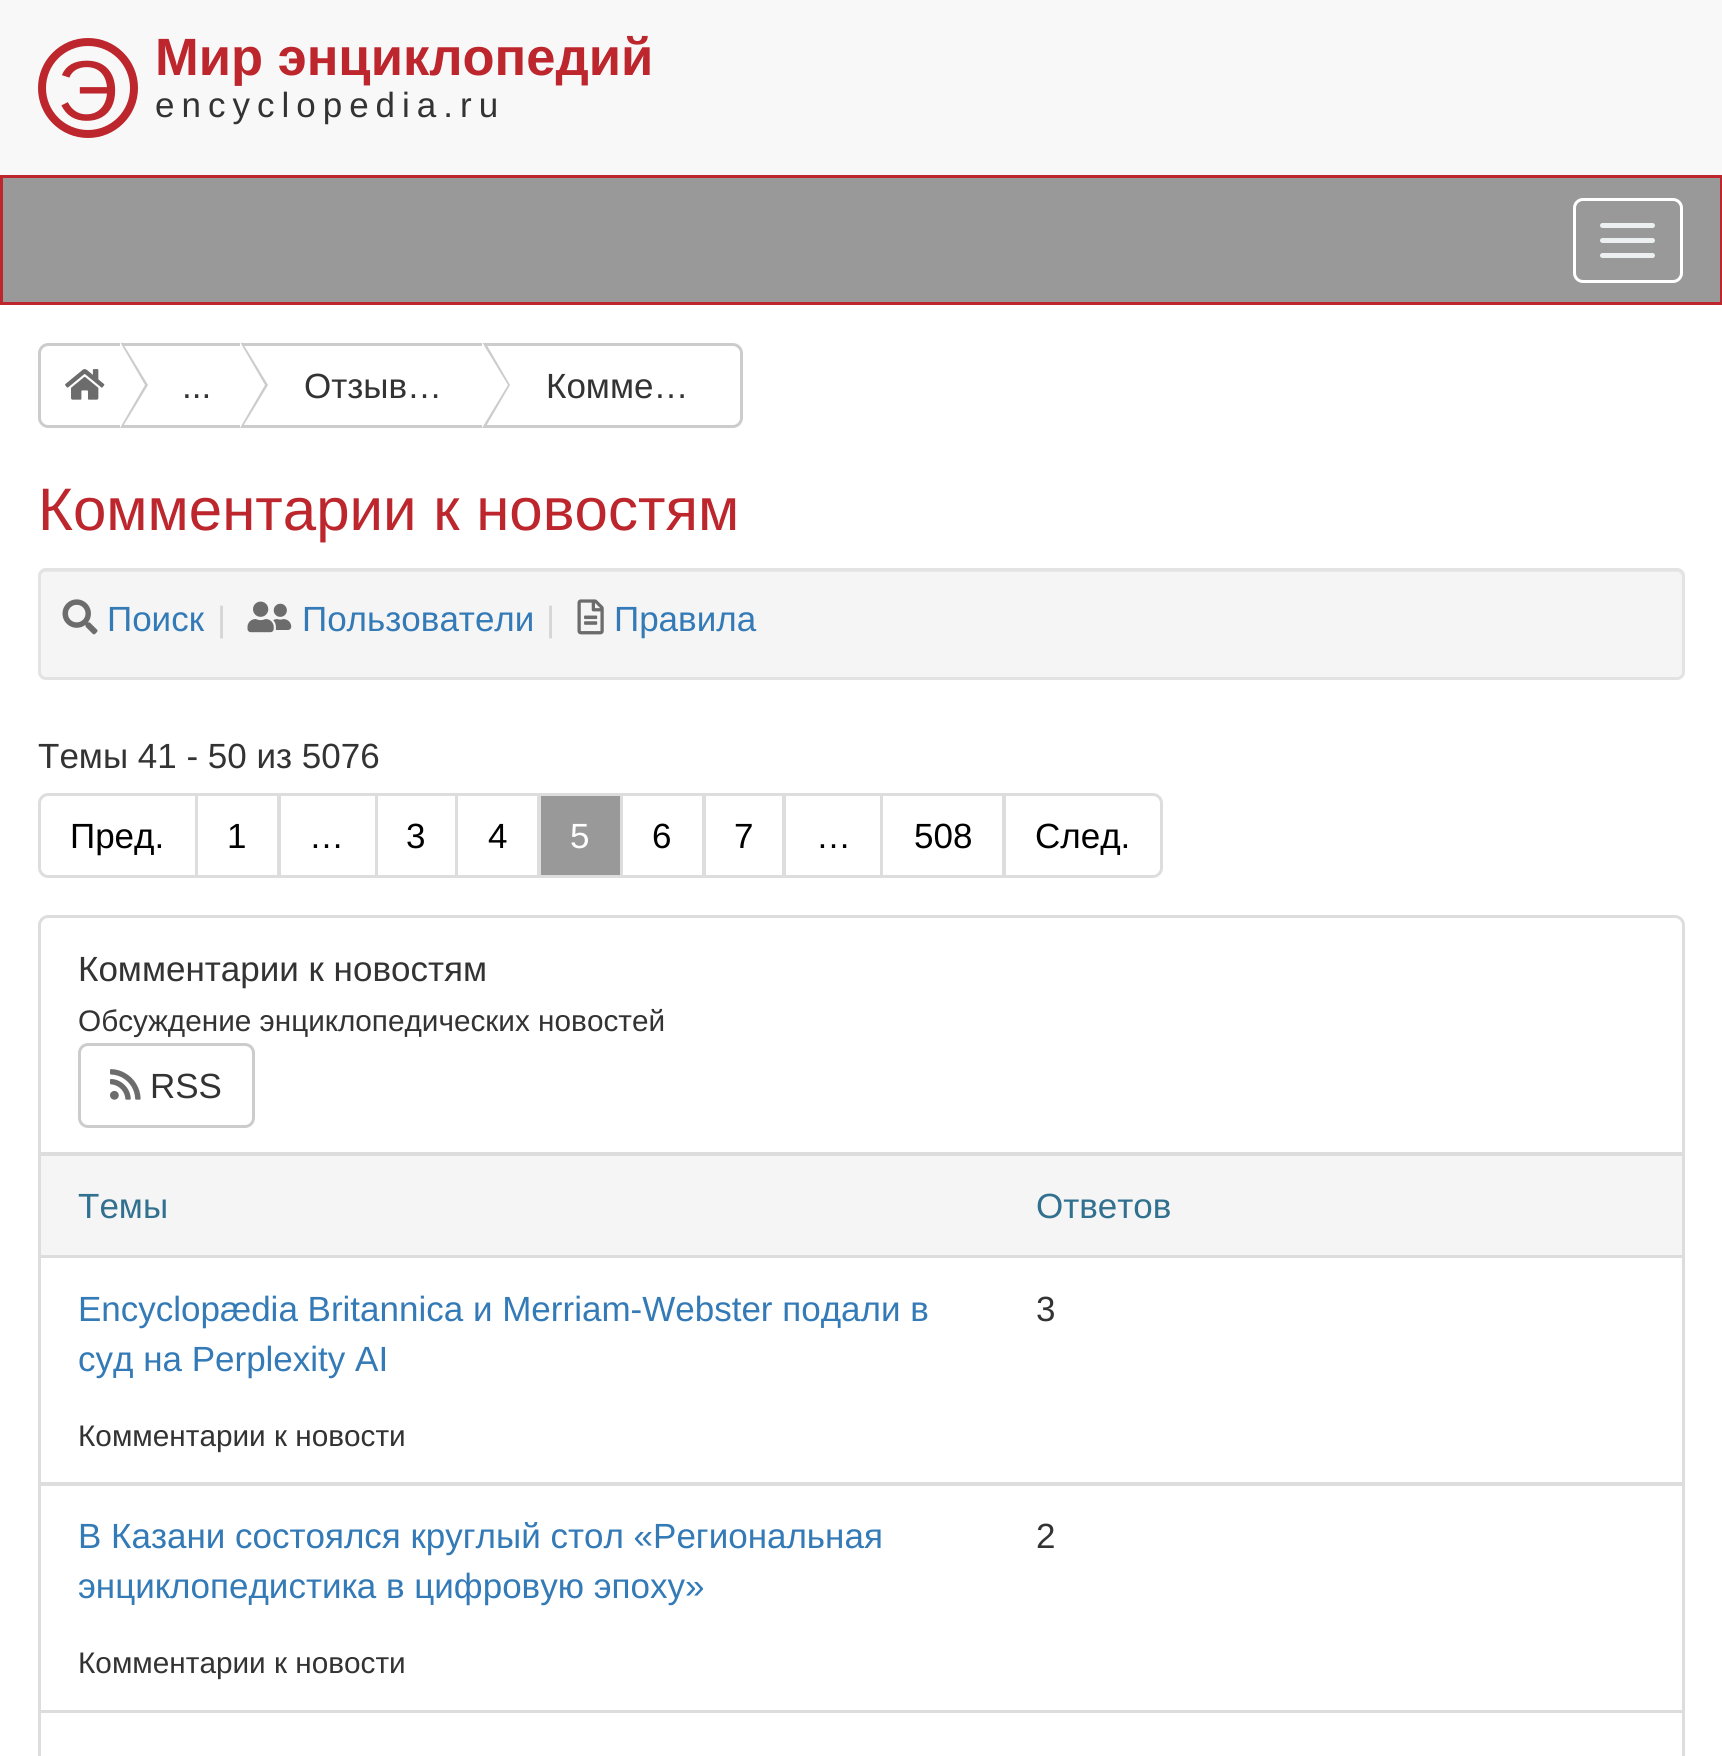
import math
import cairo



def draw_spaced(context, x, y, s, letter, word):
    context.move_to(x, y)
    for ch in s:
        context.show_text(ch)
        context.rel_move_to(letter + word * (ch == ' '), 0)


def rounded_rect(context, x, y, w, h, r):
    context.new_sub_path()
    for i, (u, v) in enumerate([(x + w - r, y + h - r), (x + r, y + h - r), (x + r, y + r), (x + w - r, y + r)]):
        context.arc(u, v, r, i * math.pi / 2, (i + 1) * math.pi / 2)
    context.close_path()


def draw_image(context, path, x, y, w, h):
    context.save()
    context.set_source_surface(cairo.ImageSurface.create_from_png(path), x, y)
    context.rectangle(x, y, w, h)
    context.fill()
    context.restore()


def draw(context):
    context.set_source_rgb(1, 1, 1)
    context.paint()
    context.set_source_rgb(248 / 255, 248 / 255, 248 / 255)
    context.rectangle(0, 0, 1722, 175)
    context.fill()
    context.arc(88, 88, 46, 0, 2 * math.pi)
    context.set_source_rgb(188 / 255, 38 / 255, 44 / 255)
    context.set_line_width(8)
    context.stroke()
    context.set_source_rgb(153 / 255, 153 / 255, 153 / 255)
    context.rectangle(1.5, 176.5, 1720, 127)
    context.fill_preserve()
    context.set_source_rgb(188 / 255, 38 / 255, 44 / 255)
    context.set_line_width(3)
    context.stroke()
    rounded_rect(context, 1574.5, 199.5, 107, 82, 8.5)
    context.set_source_rgb(1, 1, 1)
    context.stroke()
    context.set_source_rgb(236 / 255, 240 / 255, 241 / 255)
    rounded_rect(context, 1600, 223, 55, 5, 2.5)
    context.fill()
    rounded_rect(context, 1600, 238, 55, 5, 2.5)
    context.fill()
    rounded_rect(context, 1600, 253, 55, 5, 2.5)
    context.fill()
    context.new_path()
    context.move_to(48, 344.5)
    context.line_to(121.5, 344.5)
    context.line_to(121.5, 426.5)
    context.line_to(48, 426.5)
    context.curve_to(43.5, 426.5, 39.5, 422.5, 39.5, 418)
    context.line_to(39.5, 353)
    context.curve_to(39.5, 348.5, 43.5, 344.5, 48, 344.5)
    context.close_path()
    context.set_source_rgb(204 / 255, 204 / 255, 204 / 255)
    context.stroke()
    context.rectangle(121.5, 344.5, 120, 82)
    context.stroke()
    context.new_path()
    context.move_to(122, 428)
    context.line_to(122, 342)
    context.line_to(148, 385)
    context.close_path()
    context.fill()
    context.set_source_rgb(1, 1, 1)
    context.new_path()
    context.move_to(120, 428)
    context.line_to(120, 342)
    context.line_to(145, 385)
    context.close_path()
    context.fill()
    draw_image(context, "images/1.png", 65, 369, 40, 31)
    context.rectangle(241.5, 344.5, 242, 82)
    context.set_source_rgb(204 / 255, 204 / 255, 204 / 255)
    context.stroke()
    context.new_path()
    context.move_to(242, 428)
    context.line_to(242, 342)
    context.line_to(268, 385)
    context.close_path()
    context.fill()
    context.set_source_rgb(1, 1, 1)
    context.new_path()
    context.move_to(240, 428)
    context.line_to(240, 342)
    context.line_to(265, 385)
    context.close_path()
    context.fill()
    context.new_path()
    context.move_to(484.5, 344.5)
    context.line_to(733, 344.5)
    context.curve_to(737.5, 344.5, 741.5, 348.5, 741.5, 353)
    context.line_to(741.5, 418)
    context.curve_to(741.5, 422.5, 737.5, 426.5, 733, 426.5)
    context.line_to(484.5, 426.5)
    context.close_path()
    context.fill_preserve()
    context.set_source_rgb(204 / 255, 204 / 255, 204 / 255)
    context.stroke()
    context.new_path()
    context.move_to(485, 428)
    context.line_to(485, 342)
    context.line_to(510, 385)
    context.close_path()
    context.fill()
    context.set_source_rgb(1, 1, 1)
    context.new_path()
    context.move_to(482, 428)
    context.line_to(482, 342)
    context.line_to(508, 385)
    context.close_path()
    context.fill()
    context.set_source_rgb(245 / 255, 245 / 255, 245 / 255)
    rounded_rect(context, 38, 568, 1647, 112, 8)
    context.fill()
    context.set_source_rgb(233 / 255, 233 / 255, 233 / 255)
    context.new_path()
    context.move_to(45, 572)
    context.line_to(1678, 572)
    context.curve_to(1680, 572, 1682, 575, 1682, 578)
    context.line_to(1682, 676)
    context.curve_to(1683, 675, 1683, 674, 1683, 673)
    context.line_to(1683, 575)
    context.curve_to(1683, 572, 1681, 570, 1678, 570)
    context.line_to(45, 570)
    context.curve_to(42, 570, 40, 572, 40, 575)
    context.line_to(40, 578)
    context.curve_to(40, 575, 42, 572, 45, 572)
    context.close_path()
    context.fill()
    rounded_rect(context, 39.5, 569.5, 1644, 109, 6.5)
    context.set_source_rgb(227 / 255, 227 / 255, 227 / 255)
    context.stroke()
    draw_image(context, "images/2.png", 62, 599, 36, 36)
    draw_image(context, "images/3.png", 247, 601, 45, 32)
    draw_image(context, "images/4.png", 577, 599, 27, 36)
    context.new_path()
    context.move_to(48, 794.5)
    context.line_to(196.5, 794.5)
    context.line_to(196.5, 876.5)
    context.line_to(48, 876.5)
    context.curve_to(43.5, 876.5, 39.5, 872.5, 39.5, 868)
    context.line_to(39.5, 803)
    context.curve_to(39.5, 798.5, 43.5, 794.5, 48, 794.5)
    context.close_path()
    context.set_source_rgb(221 / 255, 221 / 255, 221 / 255)
    context.stroke()
    context.rectangle(196.5, 794.5, 82, 82)
    context.stroke()
    context.rectangle(279.5, 794.5, 97, 82)
    context.stroke()
    context.rectangle(376.5, 794.5, 80, 82)
    context.stroke()
    context.rectangle(456.5, 794.5, 82, 82)
    context.stroke()
    context.rectangle(621.5, 794.5, 82, 82)
    context.stroke()
    context.set_source_rgb(153 / 255, 153 / 255, 153 / 255)
    context.rectangle(539.5, 794.5, 82, 82)
    context.fill_preserve()
    context.set_source_rgb(221 / 255, 221 / 255, 221 / 255)
    context.stroke()
    context.rectangle(704.5, 794.5, 79, 82)
    context.stroke()
    context.rectangle(784.5, 794.5, 97, 82)
    context.stroke()
    context.rectangle(881.5, 794.5, 122, 82)
    context.stroke()
    context.set_source_rgb(1, 1, 1)
    context.new_path()
    context.move_to(1004.5, 794.5)
    context.line_to(1153, 794.5)
    context.curve_to(1157.5, 794.5, 1161.5, 798.5, 1161.5, 803)
    context.line_to(1161.5, 868)
    context.curve_to(1161.5, 872.5, 1157.5, 876.5, 1153, 876.5)
    context.line_to(1004.5, 876.5)
    context.close_path()
    context.fill_preserve()
    context.set_source_rgb(221 / 255, 221 / 255, 221 / 255)
    context.stroke()
    context.new_path()
    context.move_to(48, 916.5)
    context.line_to(1675, 916.5)
    context.curve_to(1679.5, 916.5, 1683.5, 920.5, 1683.5, 925)
    context.line_to(1683.5, 1153.5)
    context.line_to(39.5, 1153.5)
    context.line_to(39.5, 925)
    context.curve_to(39.5, 920.5, 43.5, 916.5, 48, 916.5)
    context.close_path()
    context.stroke()
    rounded_rect(context, 79.5, 1044.5, 174, 82, 8.5)
    context.set_source_rgb(204 / 255, 204 / 255, 204 / 255)
    context.stroke()
    draw_image(context, "images/5.png", 110, 1069, 31, 31)
    context.set_source_rgb(245 / 255, 245 / 255, 245 / 255)
    context.rectangle(39.5, 1154.5, 1644, 102)
    context.fill_preserve()
    context.set_source_rgb(221 / 255, 221 / 255, 221 / 255)
    context.stroke()
    context.rectangle(39.5, 1256.5, 1644, 227)
    context.stroke()
    context.rectangle(39.5, 1484.5, 1644, 227)
    context.stroke()
    context.rectangle(39.5, 1711.5, 1644, 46)
    context.stroke()
    context.select_font_face("Liberation Sans")
    context.set_font_size(85)
    context.set_source_rgb(188 / 255, 38 / 255, 44 / 255)
    context.move_to(57, 120)
    context.show_text("Э")
    context.select_font_face("Liberation Sans", cairo.FontSlant.NORMAL, cairo.FontWeight.BOLD)
    context.set_font_size(52.5)
    context.move_to(155, 75)
    context.show_text("Мир энциклопедий")
    context.select_font_face("Liberation Sans")
    context.set_font_size(35)
    context.set_source_rgb(51 / 255, 51 / 255, 51 / 255)
    draw_spaced(context, 155, 117, "encyclopedia.ru", 7, 0)
    context.move_to(182, 398)
    context.show_text("...")
    context.move_to(304, 398)
    context.show_text("Отзыв…")
    context.move_to(546, 398)
    context.show_text("Комме…")
    context.set_font_size(60)
    context.set_source_rgb(188 / 255, 38 / 255, 44 / 255)
    context.move_to(38, 530)
    context.show_text("Комментарии к новостям")
    context.set_font_size(35)
    context.set_source_rgb(51 / 255, 122 / 255, 183 / 255)
    context.move_to(107, 631)
    context.show_text("Поиск")
    context.set_source_rgb(213 / 255, 213 / 255, 213 / 255)
    context.move_to(217, 631)
    context.show_text("|")
    context.set_source_rgb(51 / 255, 122 / 255, 183 / 255)
    context.move_to(302, 631)
    context.show_text("Пользователи")
    context.set_source_rgb(213 / 255, 213 / 255, 213 / 255)
    context.move_to(546, 631)
    context.show_text("|")
    context.set_source_rgb(51 / 255, 122 / 255, 183 / 255)
    context.move_to(614, 631)
    context.show_text("Правила")
    context.set_source_rgb(51 / 255, 51 / 255, 51 / 255)
    context.move_to(38, 768)
    context.show_text("Темы 41 - 50 из 5076")
    context.set_source_rgb(0, 0, 0)
    context.move_to(70, 848)
    context.show_text("Пред.")
    context.move_to(227, 848)
    context.show_text("1")
    context.move_to(309, 848)
    context.show_text("…")
    context.move_to(406, 848)
    context.show_text("3")
    context.move_to(488, 848)
    context.show_text("4")
    context.set_source_rgb(1, 1, 1)
    context.move_to(570, 848)
    context.show_text("5")
    context.set_source_rgb(0, 0, 0)
    context.move_to(652, 848)
    context.show_text("6")
    context.move_to(734, 848)
    context.show_text("7")
    context.move_to(816, 848)
    context.show_text("…")
    context.move_to(914, 848)
    context.show_text("508")
    context.move_to(1035, 848)
    context.show_text("След.")
    context.set_source_rgb(51 / 255, 51 / 255, 51 / 255)
    context.move_to(78, 981)
    context.show_text("Комментарии к новостям")
    context.set_font_size(29.75)
    context.move_to(78, 1031)
    context.show_text("Обсуждение энциклопедических новостей")
    context.set_font_size(35)
    context.move_to(150, 1098)
    context.show_text("RSS")
    context.set_source_rgb(49 / 255, 112 / 255, 143 / 255)
    context.move_to(78, 1218)
    context.show_text("Темы")
    context.move_to(1036, 1218)
    context.show_text("Ответов")
    context.set_source_rgb(51 / 255, 122 / 255, 183 / 255)
    context.move_to(78, 1321)
    context.show_text("Encyclopædia Britannica и Merriam-Webster подали в")
    context.move_to(78, 1371)
    context.show_text("суд на Perplexity AI")
    context.set_font_size(29.75)
    context.set_source_rgb(51 / 255, 51 / 255, 51 / 255)
    context.move_to(78, 1446)
    context.show_text("Комментарии к новости")
    context.set_font_size(35)
    context.move_to(1036, 1321)
    context.show_text("3")
    context.set_source_rgb(51 / 255, 122 / 255, 183 / 255)
    context.move_to(78, 1548)
    context.show_text("В Казани состоялся круглый стол «Региональная")
    context.move_to(78, 1598)
    context.show_text("энциклопедистика в цифровую эпоху»")
    context.set_font_size(29.75)
    context.set_source_rgb(51 / 255, 51 / 255, 51 / 255)
    context.move_to(78, 1673)
    context.show_text("Комментарии к новости")
    context.set_font_size(35)
    context.move_to(1036, 1548)
    context.show_text("2")


surface = cairo.ImageSurface(cairo.Format.RGB24, 1722, 1756)
context = cairo.Context(surface)
options = cairo.FontOptions()
options.set_hint_metrics(cairo.HintMetrics.OFF)
options.set_hint_style(cairo.HintStyle.NONE)
context.set_font_options(options)
context.set_miter_limit(4)
draw(context)
surface.write_to_png("out.png")
